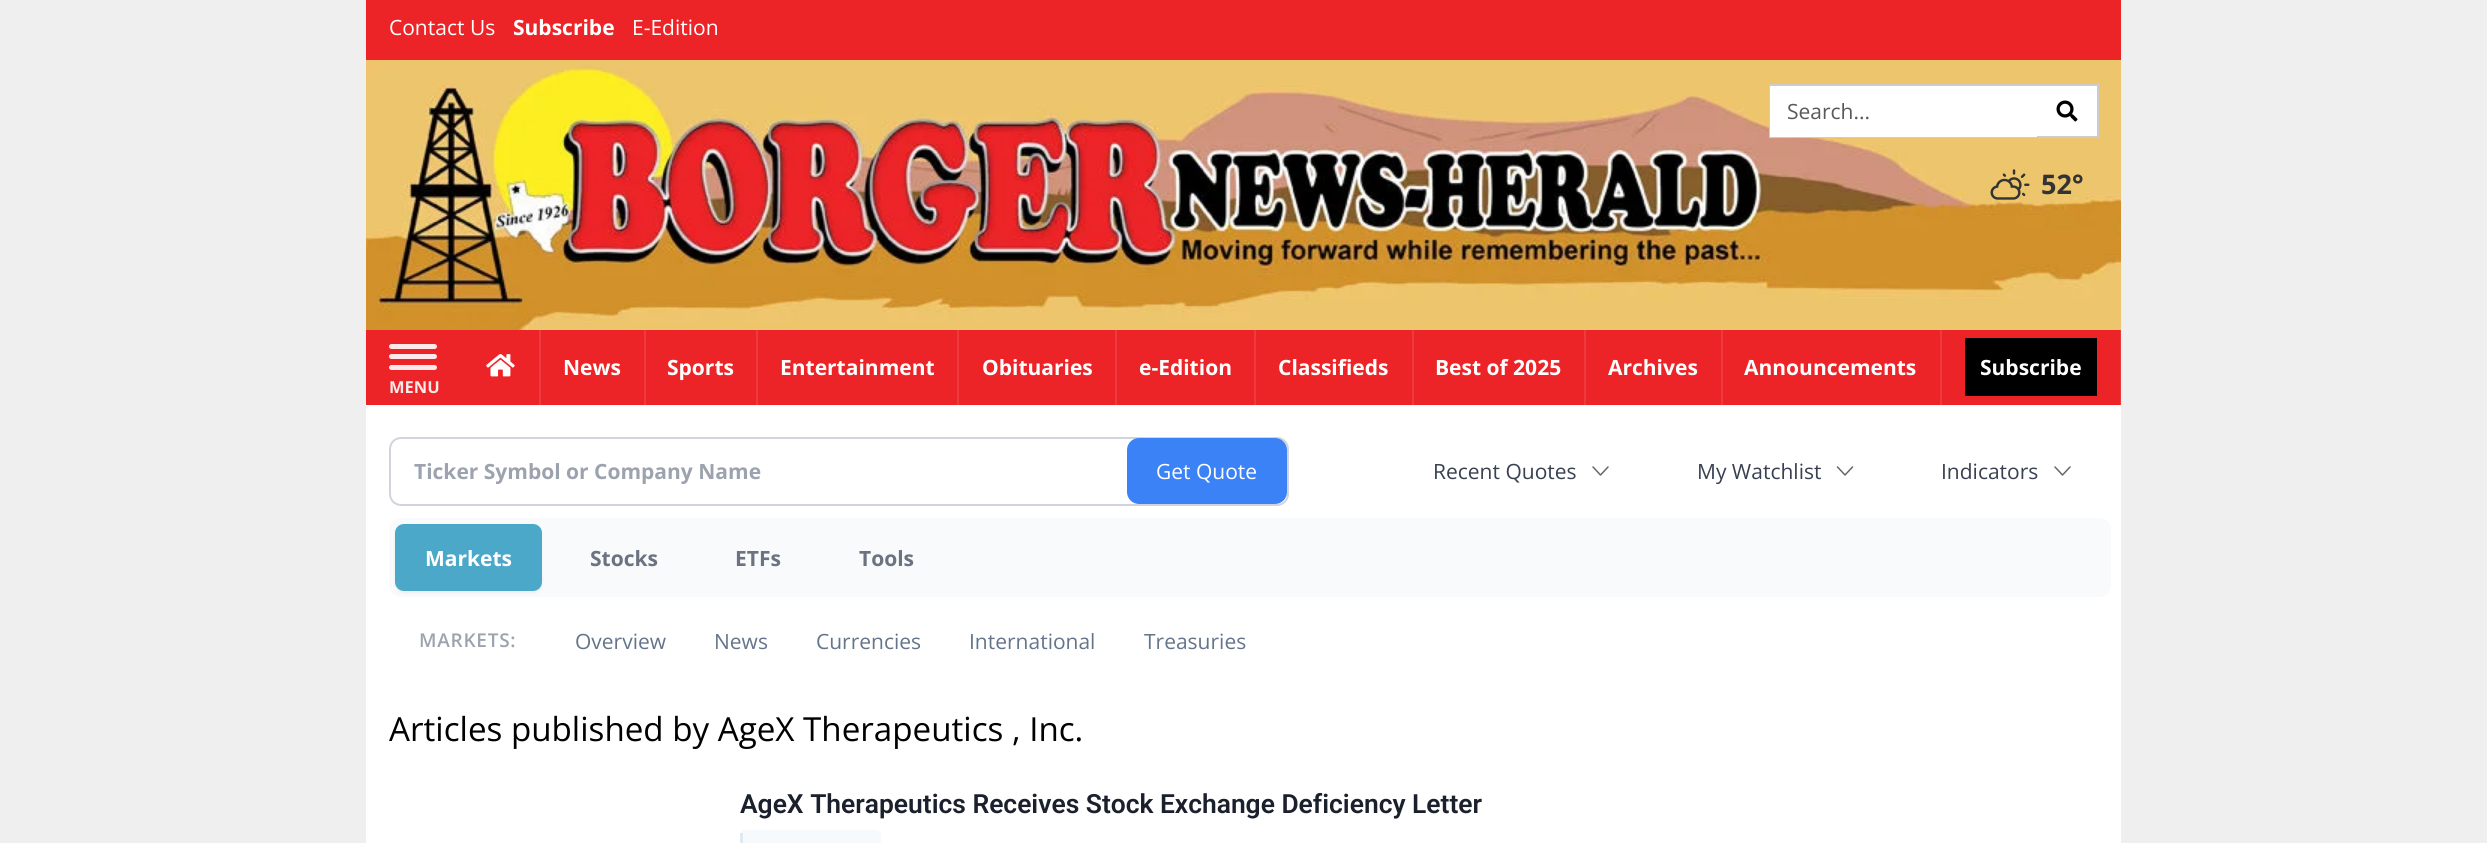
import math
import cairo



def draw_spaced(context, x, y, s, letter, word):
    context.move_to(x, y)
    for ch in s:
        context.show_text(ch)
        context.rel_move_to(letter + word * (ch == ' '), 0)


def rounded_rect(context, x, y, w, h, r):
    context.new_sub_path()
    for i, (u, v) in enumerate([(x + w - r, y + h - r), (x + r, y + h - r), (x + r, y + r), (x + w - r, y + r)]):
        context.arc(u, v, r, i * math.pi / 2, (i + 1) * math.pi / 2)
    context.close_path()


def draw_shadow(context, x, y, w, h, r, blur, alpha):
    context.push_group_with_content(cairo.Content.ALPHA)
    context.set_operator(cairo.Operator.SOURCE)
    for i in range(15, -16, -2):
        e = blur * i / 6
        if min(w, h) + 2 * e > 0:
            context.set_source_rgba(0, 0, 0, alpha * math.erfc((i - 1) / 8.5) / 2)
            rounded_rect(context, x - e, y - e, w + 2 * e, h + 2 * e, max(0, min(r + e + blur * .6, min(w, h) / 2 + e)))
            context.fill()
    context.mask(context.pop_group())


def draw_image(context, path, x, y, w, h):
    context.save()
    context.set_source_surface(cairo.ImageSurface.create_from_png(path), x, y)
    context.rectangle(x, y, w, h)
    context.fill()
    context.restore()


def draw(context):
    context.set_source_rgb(239 / 255, 239 / 255, 239 / 255)
    context.paint()
    context.set_source_rgb(236 / 255, 36 / 255, 39 / 255)
    context.rectangle(366, 0, 1755, 60)
    context.fill()
    draw_image(context, "images/1.png", 366, 60, 1755, 270)
    context.set_source_rgb(1, 1, 1)
    context.rectangle(2037, 86, 60, 50)
    context.fill()
    context.rectangle(1770, 85, 328, 52)
    context.set_source_rgb(204 / 255, 204 / 255, 204 / 255)
    context.stroke()
    context.set_source_rgb(1, 1, 1)
    context.rectangle(1770, 86, 267, 51)
    context.fill()
    draw_image(context, "images/2.png", 2056, 100, 22, 22)
    draw_image(context, "images/3.png", 1990, 169, 40, 31)
    context.set_source_rgb(236 / 255, 36 / 255, 39 / 255)
    context.rectangle(366, 330, 1754, 75)
    context.fill()
    context.set_source_rgb(238 / 255, 58 / 255, 61 / 255)
    context.rectangle(2120, 330, 1, 75)
    context.fill()
    context.rectangle(539, 330, 2, 75)
    context.fill()
    draw_image(context, "images/4.png", 486, 354, 29, 23)
    context.rectangle(644, 330, 2, 75)
    context.fill()
    context.rectangle(756, 330, 2, 75)
    context.fill()
    context.rectangle(957, 330, 2, 75)
    context.fill()
    context.rectangle(1115, 330, 2, 75)
    context.fill()
    context.rectangle(1254, 330, 2, 75)
    context.fill()
    context.rectangle(1412, 330, 2, 75)
    context.fill()
    context.rectangle(1584, 330, 2, 75)
    context.fill()
    context.rectangle(1721, 330, 2, 75)
    context.fill()
    context.rectangle(1940, 330, 2, 75)
    context.fill()
    context.set_source_rgb(0, 0, 0)
    context.rectangle(1965, 338, 132, 58)
    context.fill()
    context.set_source_rgb(253 / 255, 233 / 255, 233 / 255)
    rounded_rect(context, 389, 344, 48, 5, 2.5)
    context.fill()
    rounded_rect(context, 389, 354, 48, 5, 2.5)
    context.fill()
    rounded_rect(context, 389, 365, 48, 5, 2.5)
    context.fill()
    context.set_source_rgb(1, 1, 1)
    context.rectangle(366, 405, 1755, 438)
    context.fill()
    rounded_rect(context, 390, 438, 898, 67, 11)
    context.set_source_rgb(209 / 255, 213 / 255, 219 / 255)
    context.stroke()
    context.set_source_rgb(59 / 255, 130 / 255, 246 / 255)
    rounded_rect(context, 1127, 438, 160, 66, 12)
    context.fill()
    context.new_path()
    context.move_to(1608, 467)
    context.line_to(1600.5, 475)
    context.line_to(1593, 467)
    context.set_source_rgb(102 / 255, 102 / 255, 102 / 255)
    context.set_line_width(1.5)
    context.set_line_cap(cairo.LineCap.ROUND)
    context.set_line_join(cairo.LineJoin.ROUND)
    context.stroke()
    context.new_path()
    context.move_to(1852.5, 467)
    context.line_to(1845, 475)
    context.line_to(1837.5, 467)
    context.stroke()
    context.new_path()
    context.move_to(2070, 467)
    context.line_to(2062.5, 475)
    context.line_to(2055, 467)
    context.stroke()
    context.set_source_rgb(248 / 255, 250 / 255, 252 / 255)
    rounded_rect(context, 389, 518, 1722, 79, 12)
    context.fill()
    context.set_source_rgb(0, 0, 0)
    draw_shadow(context, 395, 525, 147, 68, 9, 1.5, 0.05)
    context.set_source_rgb(76 / 255, 168 / 255, 200 / 255)
    rounded_rect(context, 395, 524, 147, 67, 9)
    context.fill()
    context.set_source_rgb(247 / 255, 250 / 255, 252 / 255)
    rounded_rect(context, 740, 830, 141, 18, 5)
    context.fill()
    context.set_source_rgb(226 / 255, 232 / 255, 240 / 255)
    context.rectangle(740, 833, 3, 10)
    context.fill()
    context.select_font_face("Open Sans")
    context.set_font_size(21)
    context.set_source_rgb(1, 1, 1)
    context.move_to(389, 35)
    context.show_text("Contact Us")
    context.select_font_face("Open Sans", cairo.FontSlant.NORMAL, cairo.FontWeight.BOLD)
    context.move_to(513, 35)
    context.show_text("Subscribe")
    context.select_font_face("Open Sans")
    context.move_to(632, 35)
    context.show_text("E-Edition")
    context.set_source_rgb(89 / 255, 89 / 255, 89 / 255)
    context.move_to(1787, 119)
    context.show_text("Search...")
    context.select_font_face("Open Sans", cairo.FontSlant.NORMAL, cairo.FontWeight.BOLD)
    context.set_font_size(27)
    context.set_source_rgb(51 / 255, 51 / 255, 51 / 255)
    context.move_to(2041, 194)
    context.show_text("52°")
    context.set_font_size(21)
    context.set_source_rgb(1, 1, 1)
    context.move_to(563, 375)
    context.show_text("News")
    context.move_to(667, 375)
    context.show_text("Sports")
    context.move_to(780, 375)
    context.show_text("Entertainment")
    context.move_to(982, 375)
    context.show_text("Obituaries")
    context.move_to(1139, 375)
    context.show_text("e-Edition")
    context.move_to(1278, 375)
    context.show_text("Classifieds")
    context.move_to(1435, 375)
    context.show_text("Best of 2025")
    context.move_to(1608, 375)
    context.show_text("Archives")
    context.move_to(1744, 375)
    context.show_text("Announcements")
    context.move_to(1980, 375)
    context.show_text("Subscribe")
    context.set_font_size(16.5)
    context.set_source_rgb(253 / 255, 233 / 255, 233 / 255)
    context.move_to(389, 393)
    context.show_text("MENU")
    context.set_font_size(21)
    context.set_source_rgb(156 / 255, 163 / 255, 175 / 255)
    context.move_to(414, 479)
    context.show_text("Ticker Symbol or Company Name")
    context.select_font_face("Open Sans")
    context.set_source_rgb(1, 1, 1)
    context.move_to(1156, 479)
    context.show_text("Get Quote")
    context.set_source_rgb(55 / 255, 65 / 255, 81 / 255)
    context.move_to(1433, 479)
    context.show_text("Recent Quotes")
    context.move_to(1697, 479)
    context.show_text("My Watchlist")
    context.move_to(1941, 479)
    context.show_text("Indicators")
    context.select_font_face("Open Sans", cairo.FontSlant.NORMAL, cairo.FontWeight.BOLD)
    context.set_source_rgb(1, 1, 1)
    context.move_to(425, 566)
    context.show_text("Markets")
    context.set_source_rgb(107 / 255, 114 / 255, 128 / 255)
    context.move_to(590, 566)
    context.show_text("Stocks")
    context.move_to(735, 566)
    context.show_text("ETFs")
    context.move_to(859, 566)
    context.show_text("Tools")
    context.select_font_face("Open Sans SemiBold")
    context.set_font_size(19)
    context.set_source_rgb(156 / 255, 163 / 255, 175 / 255)
    draw_spaced(context, 419, 647, "MARKETS:", 0.75, 0)
    context.select_font_face("Open Sans")
    context.set_font_size(21)
    context.set_source_rgb(100 / 255, 116 / 255, 139 / 255)
    context.move_to(575, 649)
    context.show_text("Overview")
    context.move_to(714, 649)
    context.show_text("News")
    context.move_to(816, 649)
    context.show_text("Currencies")
    context.move_to(969, 649)
    context.show_text("International")
    context.move_to(1144, 649)
    context.show_text("Treasuries")
    context.set_font_size(33.15)
    context.set_source_rgb(0, 0, 0)
    context.move_to(389, 741)
    context.show_text("Articles published by AgeX Therapeutics , Inc.")
    context.select_font_face("Roboto SemiBold")
    context.set_font_size(26.4)
    context.set_source_rgb(26 / 255, 32 / 255, 44 / 255)
    context.move_to(740, 813)
    context.show_text("AgeX Therapeutics Receives Stock Exchange Deficiency Letter")


surface = cairo.ImageSurface(cairo.Format.RGB24, 2487, 843)
context = cairo.Context(surface)
options = cairo.FontOptions()
options.set_hint_metrics(cairo.HintMetrics.OFF)
options.set_hint_style(cairo.HintStyle.NONE)
context.set_font_options(options)
context.set_miter_limit(4)
draw(context)
surface.write_to_png("out.png")
